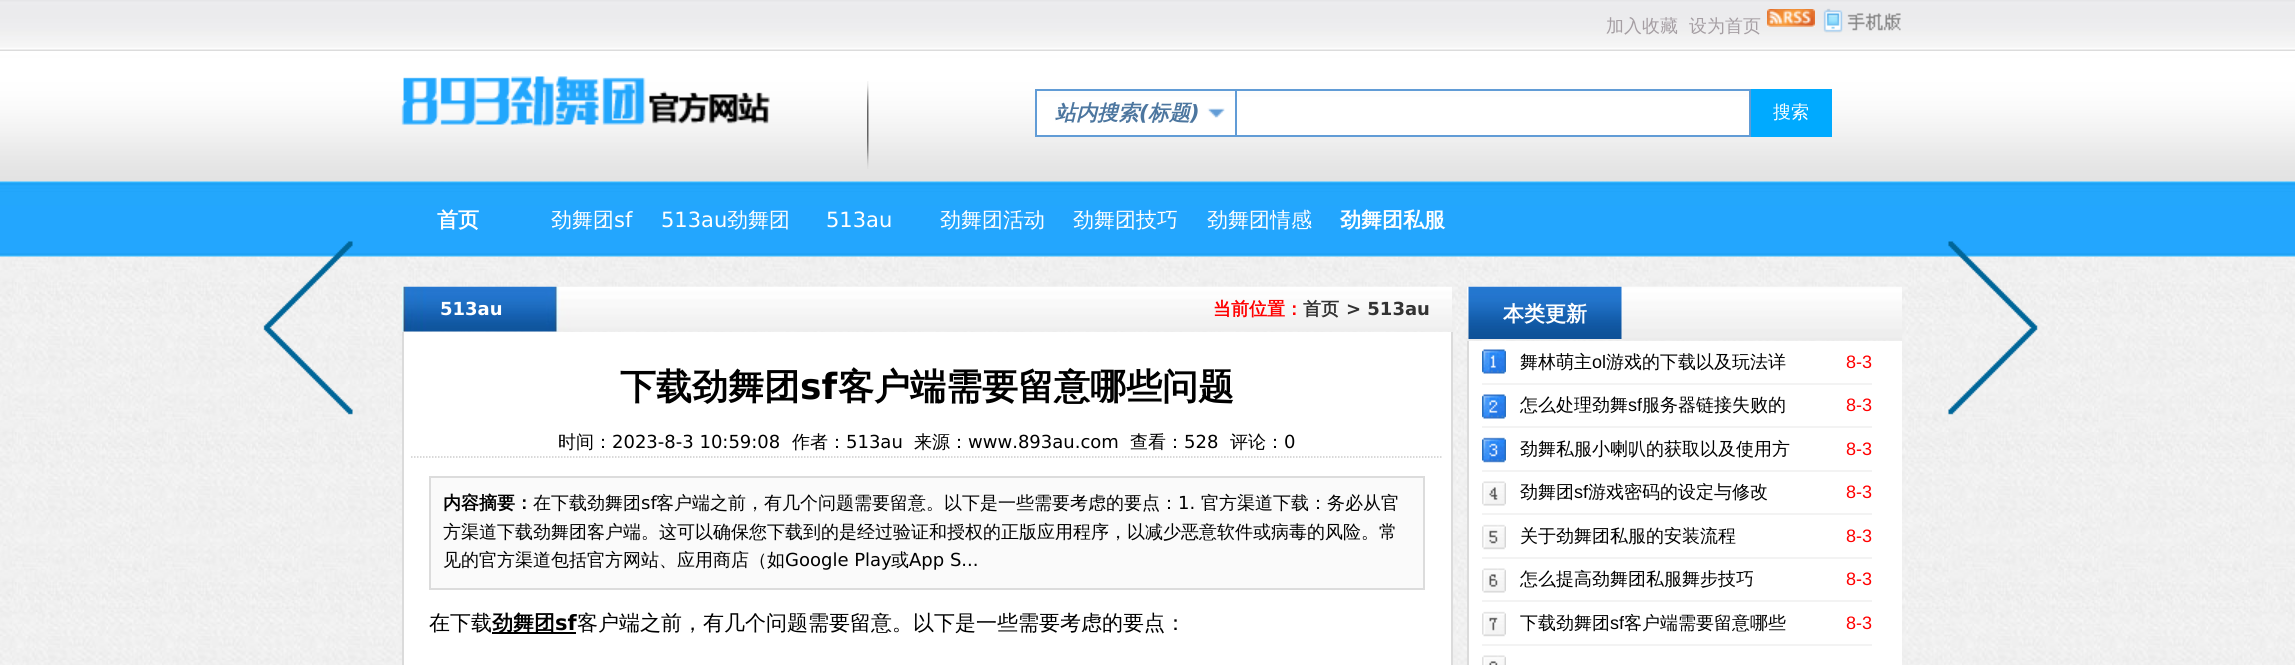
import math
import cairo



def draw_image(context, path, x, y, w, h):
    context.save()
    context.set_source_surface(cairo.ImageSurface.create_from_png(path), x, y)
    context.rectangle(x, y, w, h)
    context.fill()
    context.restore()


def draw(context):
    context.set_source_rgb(1, 1, 1)
    context.paint()
    draw_image(context, "images/1.png", 0, 181, 2295, 484)
    draw_image(context, "images/2.png", 0, 0, 2295, 51)
    draw_image(context, "images/3.png", 1767, 9, 48, 18)
    draw_image(context, "images/4.png", 1823, 8, 78, 25)
    draw_image(context, "images/5.png", 0, 51, 2295, 131)
    draw_image(context, "images/6.png", 401, 76, 369, 51)
    draw_image(context, "images/7.png", 867, 81, 2, 88)
    context.set_source_rgb(1, 1, 1)
    context.rectangle(1037, 97, 198, 38)
    context.fill()
    draw_image(context, "images/8.png", 1207, 108, 18, 10)
    context.set_source_rgb(97 / 255, 156 / 255, 214 / 255)
    context.rectangle(1035, 89, 200, 2)
    context.fill()
    context.rectangle(1035, 135, 200, 2)
    context.fill()
    context.rectangle(1035, 89, 2, 48)
    context.fill()
    context.set_source_rgb(1, 1, 1)
    context.rectangle(1237, 97, 512, 38)
    context.fill()
    context.rectangle(1236, 90, 514, 46)
    context.set_source_rgb(97 / 255, 156 / 255, 214 / 255)
    context.stroke()
    context.set_source_rgb(0, 170 / 255, 1)
    context.rectangle(1751, 89, 81, 48)
    context.fill()
    draw_image(context, "images/9.png", 0, 181, 2295, 76)
    draw_image(context, "images/10.png", 402, 286, 1050, 46)
    context.set_source_rgb(1, 1, 1)
    context.rectangle(404, 332, 1047, 333)
    context.fill()
    context.set_source_rgb(219 / 255, 219 / 255, 219 / 255)
    context.rectangle(1451, 332, 2, 333)
    context.fill()
    context.rectangle(402, 332, 2, 333)
    context.fill()
    context.new_path()
    context.move_to(411, 457)
    context.line_to(1443, 457)
    context.set_source_rgb(204 / 255, 204 / 255, 204 / 255)
    context.set_line_width(1.5)
    context.set_dash([1.5, 1.5])
    context.stroke()
    draw_image(context, "images/11.png", 263, 241, 90, 174)
    draw_image(context, "images/12.png", 1948, 241, 90, 174)
    context.set_source_rgb(250 / 255, 250 / 255, 250 / 255)
    context.rectangle(430, 477, 994, 112)
    context.fill_preserve()
    context.set_source_rgb(220 / 255, 220 / 255, 220 / 255)
    context.set_line_width(2)
    context.set_dash([])
    context.stroke()
    context.set_source_rgb(0, 0, 0)
    context.rectangle(492, 632, 84, 2)
    context.fill()
    context.set_source_rgb(1, 1, 1)
    context.rectangle(1469, 341, 433, 324)
    context.fill()
    draw_image(context, "images/15.png", 1482, 340, 24, 325)
    draw_image(context, "images/13.png", 1467, 286, 435, 55)
    draw_image(context, "images/14.png", 1468, 286, 154, 53)
    context.set_source_rgb(219 / 255, 219 / 255, 219 / 255)
    context.rectangle(1467, 341, 2, 324)
    context.fill()
    context.set_source_rgb(243 / 255, 243 / 255, 243 / 255)
    context.rectangle(1482, 383, 390, 2)
    context.fill()
    context.rectangle(1482, 426, 390, 2)
    context.fill()
    context.rectangle(1482, 470, 390, 2)
    context.fill()
    context.rectangle(1482, 513, 390, 2)
    context.fill()
    context.rectangle(1482, 557, 390, 2)
    context.fill()
    context.rectangle(1482, 600, 390, 2)
    context.fill()
    context.rectangle(1482, 644, 390, 2)
    context.fill()
    context.select_font_face("WenQuanYi Zen Hei Medium")
    context.set_font_size(18)
    context.set_source_rgb(165 / 255, 158 / 255, 163 / 255)
    context.move_to(1606, 32)
    context.show_text("加入收藏")
    context.move_to(1689, 32)
    context.show_text("设为首页")
    context.select_font_face("WenQuanYi Zen Hei", cairo.FontSlant.ITALIC, cairo.FontWeight.BOLD)
    context.set_font_size(21)
    context.set_source_rgb(76 / 255, 118 / 255, 159 / 255)
    context.move_to(1055, 120)
    context.show_text("站内搜索")
    context.select_font_face("DejaVu Sans", cairo.FontSlant.ITALIC, cairo.FontWeight.BOLD)
    context.move_to(1139, 120)
    context.show_text("(")
    context.select_font_face("WenQuanYi Zen Hei", cairo.FontSlant.ITALIC, cairo.FontWeight.BOLD)
    context.move_to(1148, 120)
    context.show_text("标题")
    context.select_font_face("DejaVu Sans", cairo.FontSlant.ITALIC, cairo.FontWeight.BOLD)
    context.move_to(1190, 120)
    context.show_text(")")
    context.select_font_face("WenQuanYi Zen Hei Medium")
    context.set_font_size(18)
    context.set_source_rgb(1, 1, 1)
    context.move_to(1773, 118)
    context.show_text("搜索")
    context.select_font_face("WenQuanYi Zen Hei", cairo.FontSlant.NORMAL, cairo.FontWeight.BOLD)
    context.set_font_size(21)
    context.move_to(437, 227)
    context.show_text("首页")
    context.select_font_face("WenQuanYi Zen Hei Medium")
    context.move_to(551, 227)
    context.show_text("劲舞团")
    context.select_font_face("DejaVu Sans")
    context.move_to(614, 227)
    context.show_text("sf")
    context.move_to(661, 227)
    context.show_text("513au")
    context.select_font_face("WenQuanYi Zen Hei Medium")
    context.move_to(727, 227)
    context.show_text("劲舞团")
    context.select_font_face("DejaVu Sans")
    context.move_to(826, 227)
    context.show_text("513au")
    context.select_font_face("WenQuanYi Zen Hei Medium")
    context.move_to(940, 227)
    context.show_text("劲舞团活动")
    context.move_to(1073, 227)
    context.show_text("劲舞团技巧")
    context.move_to(1207, 227)
    context.show_text("劲舞团情感")
    context.select_font_face("WenQuanYi Zen Hei", cairo.FontSlant.NORMAL, cairo.FontWeight.BOLD)
    context.move_to(1340, 227)
    context.show_text("劲舞团私服")
    context.select_font_face("DejaVu Sans", cairo.FontSlant.NORMAL, cairo.FontWeight.BOLD)
    context.set_font_size(18)
    context.move_to(440, 315)
    context.show_text("513au")
    context.select_font_face("WenQuanYi Zen Hei", cairo.FontSlant.NORMAL, cairo.FontWeight.BOLD)
    context.set_source_rgb(1, 0, 0)
    context.move_to(1213, 315)
    context.show_text("当前位置：")
    context.set_source_rgb(51 / 255, 51 / 255, 51 / 255)
    context.move_to(1303, 315)
    context.show_text("首页")
    context.select_font_face("DejaVu Sans", cairo.FontSlant.NORMAL, cairo.FontWeight.BOLD)
    context.move_to(1346, 315)
    context.show_text("> 513au")
    context.select_font_face("WenQuanYi Zen Hei", cairo.FontSlant.NORMAL, cairo.FontWeight.BOLD)
    context.set_font_size(36)
    context.set_source_rgb(0, 0, 0)
    context.move_to(620, 399)
    context.show_text("下载劲舞团")
    context.select_font_face("DejaVu Sans", cairo.FontSlant.NORMAL, cairo.FontWeight.BOLD)
    context.move_to(800, 399)
    context.show_text("sf")
    context.select_font_face("WenQuanYi Zen Hei", cairo.FontSlant.NORMAL, cairo.FontWeight.BOLD)
    context.move_to(838, 399)
    context.show_text("客户端需要留意哪些问题")
    context.select_font_face("WenQuanYi Zen Hei Medium")
    context.set_font_size(18)
    context.move_to(558, 448)
    context.show_text("时间：")
    context.select_font_face("DejaVu Sans")
    context.move_to(612, 448)
    context.show_text("2023-8-3 10:59:08")
    context.select_font_face("WenQuanYi Zen Hei Medium")
    context.move_to(792, 448)
    context.show_text("作者：")
    context.select_font_face("DejaVu Sans")
    context.move_to(846, 448)
    context.show_text("513au")
    context.select_font_face("WenQuanYi Zen Hei Medium")
    context.move_to(914, 448)
    context.show_text("来源：")
    context.select_font_face("DejaVu Sans")
    context.move_to(968, 448)
    context.show_text("www.893au.com")
    context.select_font_face("WenQuanYi Zen Hei Medium")
    context.move_to(1130, 448)
    context.show_text("查看：")
    context.select_font_face("DejaVu Sans")
    context.move_to(1184, 448)
    context.show_text("528")
    context.select_font_face("WenQuanYi Zen Hei Medium")
    context.move_to(1230, 448)
    context.show_text("评论：")
    context.select_font_face("DejaVu Sans")
    context.move_to(1284, 448)
    context.show_text("0")
    context.select_font_face("WenQuanYi Zen Hei", cairo.FontSlant.NORMAL, cairo.FontWeight.BOLD)
    context.move_to(443, 509)
    context.show_text("内容摘要：")
    context.select_font_face("WenQuanYi Zen Hei Medium")
    context.move_to(533, 509)
    context.show_text("在下载劲舞团")
    context.select_font_face("DejaVu Sans")
    context.move_to(641, 509)
    context.show_text("sf")
    context.select_font_face("WenQuanYi Zen Hei Medium")
    context.move_to(656, 509)
    context.show_text("客户端之前，有几个问题需要留意。以下是一些需要考虑的要点：")
    context.select_font_face("DejaVu Sans")
    context.move_to(1178, 509)
    context.show_text("1.")
    context.select_font_face("WenQuanYi Zen Hei Medium")
    context.move_to(1201, 509)
    context.show_text("官方渠道下载：务必从官")
    context.move_to(443, 538)
    context.show_text("方渠道下载劲舞团客户端。这可以确保您下载到的是经过验证和授权的正版应用程序，以减少恶意软件或病毒的风险。常")
    context.move_to(443, 566)
    context.show_text("见的官方渠道包括官方网站、应用商店（如")
    context.select_font_face("DejaVu Sans")
    context.move_to(785, 566)
    context.show_text("Google Play")
    context.select_font_face("WenQuanYi Zen Hei Medium")
    context.move_to(891, 566)
    context.show_text("或")
    context.select_font_face("DejaVu Sans")
    context.move_to(909, 566)
    context.show_text("App S...")
    context.select_font_face("WenQuanYi Zen Hei Medium")
    context.set_font_size(21)
    context.move_to(429, 630)
    context.show_text("在下载")
    context.select_font_face("WenQuanYi Zen Hei", cairo.FontSlant.NORMAL, cairo.FontWeight.BOLD)
    context.move_to(492, 630)
    context.show_text("劲舞团")
    context.select_font_face("DejaVu Sans", cairo.FontSlant.NORMAL, cairo.FontWeight.BOLD)
    context.move_to(555, 630)
    context.show_text("sf")
    context.select_font_face("WenQuanYi Zen Hei Medium")
    context.move_to(577, 630)
    context.show_text("客户端之前，有几个问题需要留意。以下是一些需要考虑的要点：")
    context.select_font_face("WenQuanYi Zen Hei", cairo.FontSlant.NORMAL, cairo.FontWeight.BOLD)
    context.set_source_rgb(1, 1, 1)
    context.move_to(1503, 321)
    context.show_text("本类更新")
    context.select_font_face("WenQuanYi Zen Hei Medium")
    context.set_font_size(18)
    context.set_source_rgb(0, 0, 0)
    context.move_to(1520, 368)
    context.show_text("舞林萌主")
    context.select_font_face("Liberation Sans")
    context.move_to(1592, 368)
    context.show_text("ol")
    context.select_font_face("WenQuanYi Zen Hei Medium")
    context.move_to(1606, 368)
    context.show_text("游戏的下载以及玩法详")
    context.select_font_face("Liberation Sans")
    context.set_source_rgb(1, 0, 0)
    context.move_to(1846, 368)
    context.show_text("8-3")
    context.select_font_face("WenQuanYi Zen Hei Medium")
    context.set_source_rgb(0, 0, 0)
    context.move_to(1520, 411)
    context.show_text("怎么处理劲舞")
    context.select_font_face("Liberation Sans")
    context.move_to(1628, 411)
    context.show_text("sf")
    context.select_font_face("WenQuanYi Zen Hei Medium")
    context.move_to(1642, 411)
    context.show_text("服务器链接失败的")
    context.select_font_face("Liberation Sans")
    context.set_source_rgb(1, 0, 0)
    context.move_to(1846, 411)
    context.show_text("8-3")
    context.select_font_face("WenQuanYi Zen Hei Medium")
    context.set_source_rgb(0, 0, 0)
    context.move_to(1520, 455)
    context.show_text("劲舞私服小喇叭的获取以及使用方")
    context.select_font_face("Liberation Sans")
    context.set_source_rgb(1, 0, 0)
    context.move_to(1846, 455)
    context.show_text("8-3")
    context.select_font_face("WenQuanYi Zen Hei Medium")
    context.set_source_rgb(0, 0, 0)
    context.move_to(1520, 498)
    context.show_text("劲舞团")
    context.select_font_face("Liberation Sans")
    context.move_to(1574, 498)
    context.show_text("sf")
    context.select_font_face("WenQuanYi Zen Hei Medium")
    context.move_to(1588, 498)
    context.show_text("游戏密码的设定与修改")
    context.select_font_face("Liberation Sans")
    context.set_source_rgb(1, 0, 0)
    context.move_to(1846, 498)
    context.show_text("8-3")
    context.select_font_face("WenQuanYi Zen Hei Medium")
    context.set_source_rgb(0, 0, 0)
    context.move_to(1520, 542)
    context.show_text("关于劲舞团私服的安装流程")
    context.select_font_face("Liberation Sans")
    context.set_source_rgb(1, 0, 0)
    context.move_to(1846, 542)
    context.show_text("8-3")
    context.select_font_face("WenQuanYi Zen Hei Medium")
    context.set_source_rgb(0, 0, 0)
    context.move_to(1520, 585)
    context.show_text("怎么提高劲舞团私服舞步技巧")
    context.select_font_face("Liberation Sans")
    context.set_source_rgb(1, 0, 0)
    context.move_to(1846, 585)
    context.show_text("8-3")
    context.select_font_face("WenQuanYi Zen Hei Medium")
    context.set_source_rgb(0, 0, 0)
    context.move_to(1520, 629)
    context.show_text("下载劲舞团")
    context.select_font_face("Liberation Sans")
    context.move_to(1610, 629)
    context.show_text("sf")
    context.select_font_face("WenQuanYi Zen Hei Medium")
    context.move_to(1624, 629)
    context.show_text("客户端需要留意哪些")
    context.select_font_face("Liberation Sans")
    context.set_source_rgb(1, 0, 0)
    context.move_to(1846, 629)
    context.show_text("8-3")


surface = cairo.ImageSurface(cairo.Format.RGB24, 2295, 665)
context = cairo.Context(surface)
options = cairo.FontOptions()
options.set_hint_metrics(cairo.HintMetrics.OFF)
options.set_hint_style(cairo.HintStyle.NONE)
context.set_font_options(options)
context.set_miter_limit(4)
draw(context)
surface.write_to_png("out.png")
